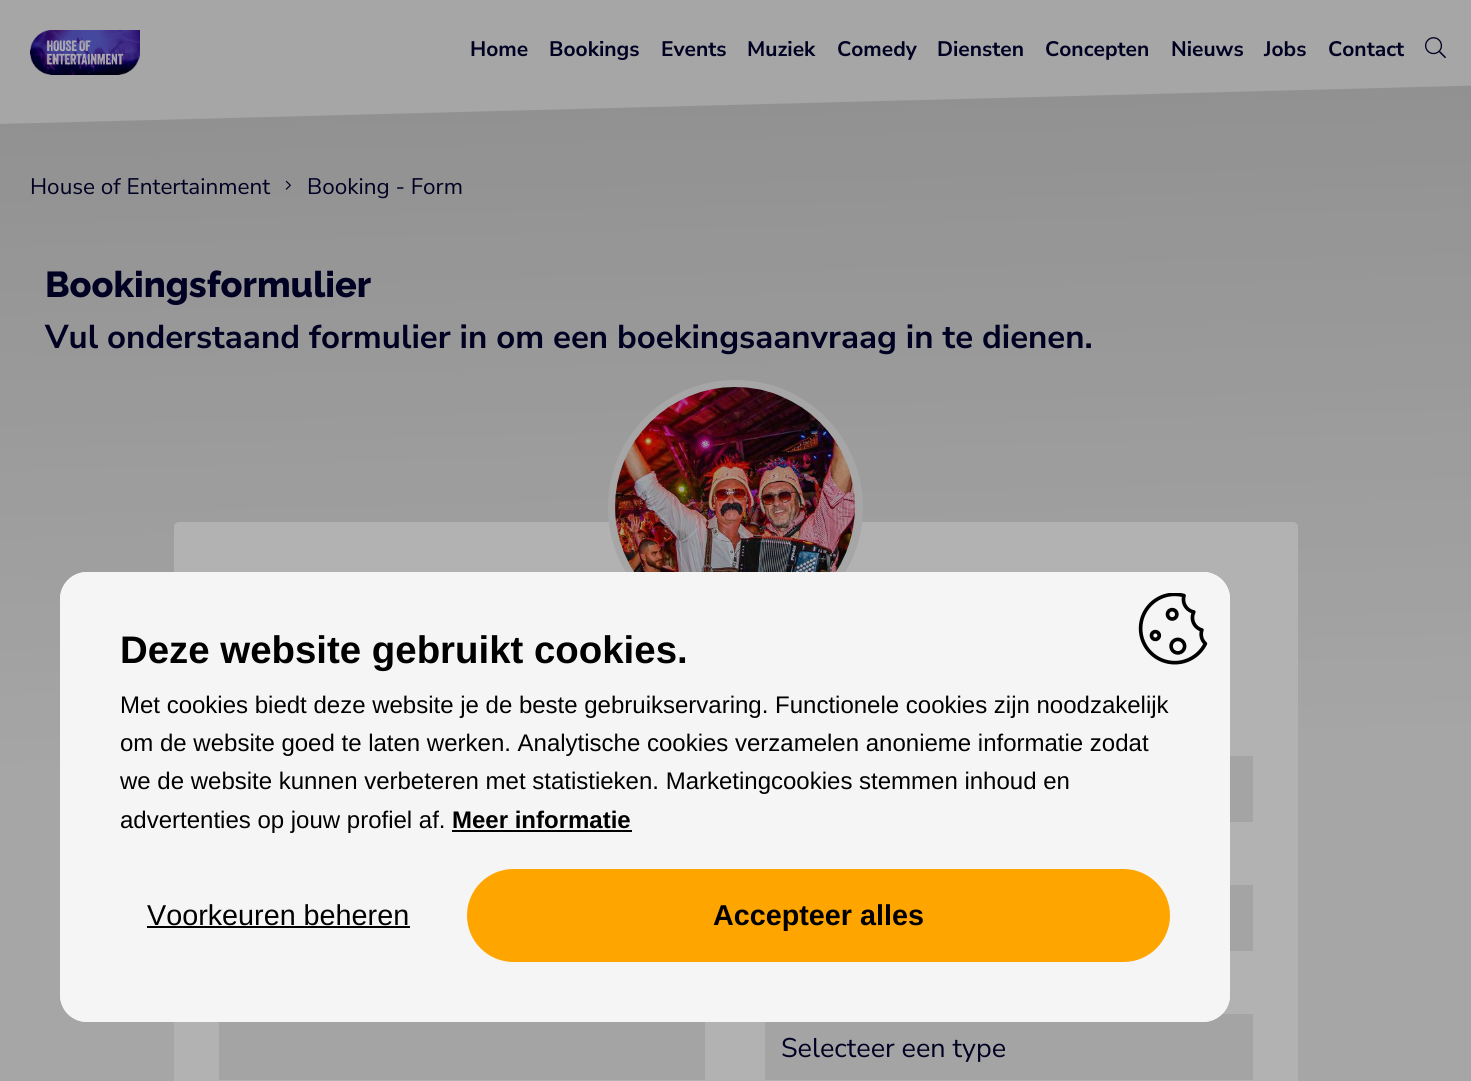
import math
import cairo



def rounded_rect(context, x, y, w, h, r):
    context.new_sub_path()
    for i, (u, v) in enumerate([(x + w - r, y + h - r), (x + r, y + h - r), (x + r, y + r), (x + w - r, y + r)]):
        context.arc(u, v, r, i * math.pi / 2, (i + 1) * math.pi / 2)
    context.close_path()


def draw_image(context, path, x, y, w, h):
    context.save()
    context.set_source_surface(cairo.ImageSurface.create_from_png(path), x, y)
    context.rectangle(x, y, w, h)
    context.fill()
    context.restore()


def draw(context):
    context.set_source_rgb(236 / 255, 236 / 255, 236 / 255)
    context.paint()
    draw_image(context, "images/1.png", 30, 30, 110, 45)
    draw_image(context, "images/2.png", 1425, 37, 21, 22)
    gradient = cairo.LinearGradient(727, 105, 744, 754)
    gradient.add_color_stop_rgba(0, 207 / 255, 207 / 255, 207 / 255, 1)
    gradient.add_color_stop_rgba(1, 236 / 255, 236 / 255, 236 / 255, 1)
    context.set_source(gradient)
    context.new_path()
    context.move_to(-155, 128)
    context.line_to(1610, 82)
    context.line_to(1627, 731)
    context.line_to(-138, 777)
    context.close_path()
    context.fill()
    draw_image(context, "images/3.png", 285, 180, 6, 10)
    context.set_source_rgb(254 / 255, 254 / 255, 254 / 255)
    rounded_rect(context, 174, 522, 1124, 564, 5)
    context.fill()
    context.arc(735.5, 507.5, 123.5, 0, 2 * math.pi)
    context.set_source_rgb(236 / 255, 236 / 255, 236 / 255)
    context.set_line_width(8)
    context.stroke()
    draw_image(context, "images/4.png", 615, 387, 240, 185)
    context.set_source_rgb(234 / 255, 234 / 255, 234 / 255)
    context.rectangle(1230, 756, 23, 66)
    context.fill()
    context.rectangle(1230, 885, 23, 66)
    context.fill()
    context.rectangle(219, 1022, 486, 58)
    context.fill()
    context.rectangle(765, 1014, 488, 66)
    context.fill()
    context.select_font_face("Nunito Sans", cairo.FontSlant.NORMAL, cairo.FontWeight.BOLD)
    context.set_font_size(21)
    context.set_source_rgb(0, 0, 50 / 255)
    context.move_to(470, 56)
    context.show_text("Home")
    context.move_to(549, 56)
    context.show_text("Bookings")
    context.move_to(661, 56)
    context.show_text("Events")
    context.move_to(747, 56)
    context.show_text("Muziek")
    context.move_to(837, 56)
    context.show_text("Comedy")
    context.move_to(937, 56)
    context.show_text("Diensten")
    context.move_to(1045, 56)
    context.show_text("Concepten")
    context.move_to(1171, 56)
    context.show_text("Nieuws")
    context.move_to(1264, 56)
    context.show_text("Jobs")
    context.move_to(1328, 56)
    context.show_text("Contact")
    context.select_font_face("Nunito Sans")
    context.set_font_size(22.5)
    context.move_to(30, 194)
    context.show_text("House of Entertainment")
    context.move_to(307, 194)
    context.show_text("Booking - Form")
    context.select_font_face("Raleway ExtraBold")
    context.set_font_size(36)
    context.move_to(45, 297)
    context.show_text("Bookingsformulier")
    context.select_font_face("Nunito Sans", cairo.FontSlant.NORMAL, cairo.FontWeight.BOLD)
    context.set_font_size(33)
    context.move_to(45, 348)
    context.show_text("Vul onderstaand formulier in om een boekingsaanvraag in te dienen.")
    context.select_font_face("Nunito Sans")
    context.set_font_size(27)
    context.move_to(781, 1057)
    context.show_text("Selecteer een type")
    rounded_rect(context, -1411.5, -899.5, 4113, 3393, 1498.5)
    context.set_source_rgba(0, 0, 0, 0.3)
    context.set_line_width(2943)
    context.stroke()
    context.set_source_rgb(245 / 255, 245 / 255, 245 / 255)
    rounded_rect(context, 60, 572, 1170, 450, 27)
    context.fill()
    context.select_font_face("Liberation Sans", cairo.FontSlant.NORMAL, cairo.FontWeight.BOLD)
    context.set_font_size(38.4)
    context.set_source_rgb(0, 0, 0)
    context.move_to(120, 663)
    context.show_text("Deze website gebruikt cookies.")
    context.select_font_face("Liberation Sans")
    context.set_font_size(24)
    context.move_to(120, 713)
    context.show_text("Met cookies biedt deze website je de beste gebruikservaring. Functionele cookies zijn noodzakelijk")
    context.move_to(120, 751)
    context.show_text("om de website goed te laten werken. Analytische cookies verzamelen anonieme informatie zodat")
    context.move_to(120, 789)
    context.show_text("we de website kunnen verbeteren met statistieken. Marketingcookies stemmen inhoud en")
    context.move_to(120, 828)
    context.show_text("advertenties op jouw profiel af.")
    context.select_font_face("Liberation Sans", cairo.FontSlant.NORMAL, cairo.FontWeight.BOLD)
    context.move_to(452, 828)
    context.show_text("Meer informatie")
    context.rectangle(452, 830, 180, 2)
    context.fill()
    draw_image(context, "images/5.png", 1138, 593, 70, 72)
    context.select_font_face("Liberation Sans")
    context.set_font_size(28.75)
    context.move_to(147, 925)
    context.show_text("Voorkeuren beheren")
    context.rectangle(147, 926, 263, 2)
    context.fill()
    context.set_source_rgb(1, 165 / 255, 0)
    rounded_rect(context, 467, 869, 703, 93, 46.5)
    context.fill()
    context.select_font_face("Liberation Sans", cairo.FontSlant.NORMAL, cairo.FontWeight.BOLD)
    context.set_source_rgb(0, 0, 0)
    context.move_to(713, 925)
    context.show_text("Accepteer alles")


surface = cairo.ImageSurface(cairo.Format.RGB24, 1471, 1081)
context = cairo.Context(surface)
options = cairo.FontOptions()
options.set_hint_metrics(cairo.HintMetrics.OFF)
options.set_hint_style(cairo.HintStyle.NONE)
context.set_font_options(options)
context.set_miter_limit(4)
draw(context)
surface.write_to_png("out.png")
